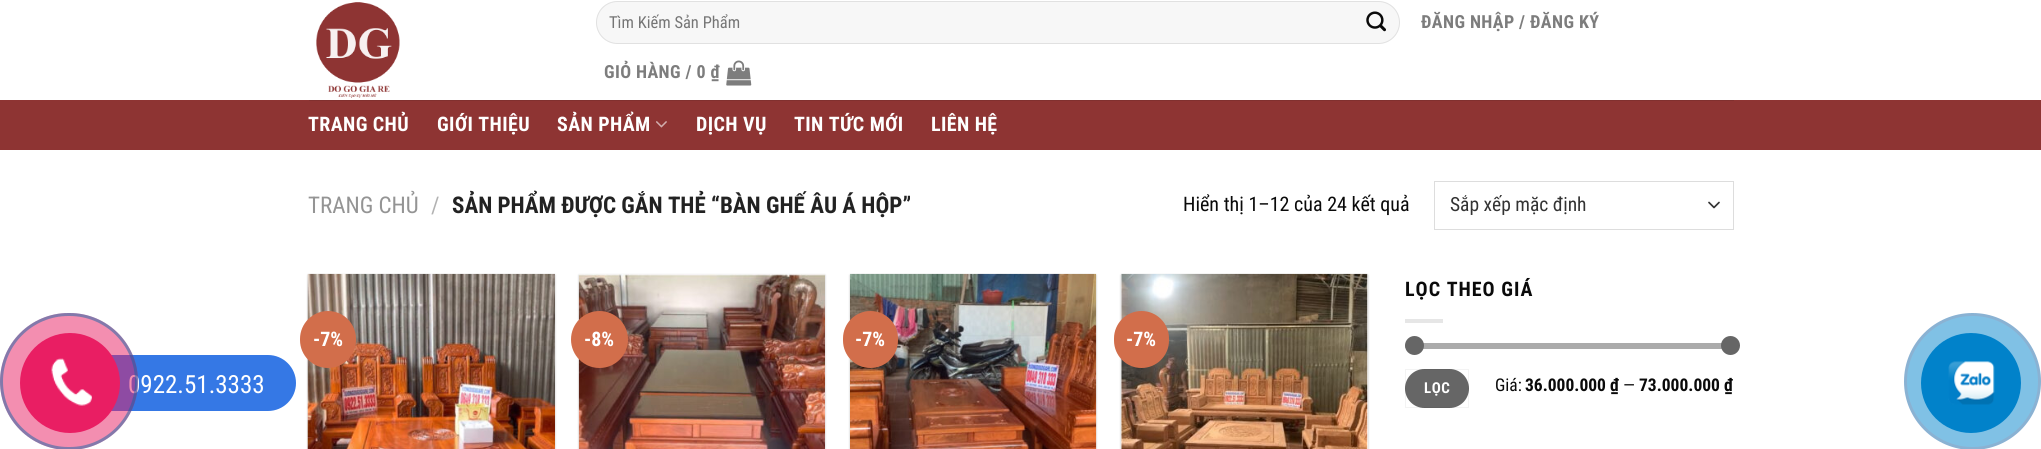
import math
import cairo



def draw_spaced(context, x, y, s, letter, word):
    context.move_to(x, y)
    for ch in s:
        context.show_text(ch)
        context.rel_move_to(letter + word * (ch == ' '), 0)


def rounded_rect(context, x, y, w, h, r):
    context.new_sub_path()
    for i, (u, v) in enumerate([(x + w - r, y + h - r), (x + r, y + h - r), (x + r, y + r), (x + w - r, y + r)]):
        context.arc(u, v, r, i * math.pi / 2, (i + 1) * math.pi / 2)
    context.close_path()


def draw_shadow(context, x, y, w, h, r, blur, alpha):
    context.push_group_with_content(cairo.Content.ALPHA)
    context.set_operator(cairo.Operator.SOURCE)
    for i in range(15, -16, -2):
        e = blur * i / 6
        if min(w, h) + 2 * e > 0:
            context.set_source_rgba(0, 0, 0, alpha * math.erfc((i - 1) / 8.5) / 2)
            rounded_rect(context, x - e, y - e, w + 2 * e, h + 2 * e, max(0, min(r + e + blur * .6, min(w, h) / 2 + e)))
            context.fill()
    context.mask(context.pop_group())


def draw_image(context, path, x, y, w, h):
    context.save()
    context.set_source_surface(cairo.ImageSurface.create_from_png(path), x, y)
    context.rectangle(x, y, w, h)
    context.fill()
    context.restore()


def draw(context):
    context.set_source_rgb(1, 1, 1)
    context.paint()
    context.set_source_rgb(53 / 255, 120 / 255, 229 / 255)
    rounded_rect(context, 65, 355, 231, 56, 28)
    context.fill()
    draw_image(context, "images/2.png", 316, 2, 84, 96)
    context.set_source_rgb(247 / 255, 247 / 255, 247 / 255)
    rounded_rect(context, 596, 1, 804, 43, 21.5)
    context.fill()
    rounded_rect(context, 596.5, 1.5, 803, 42, 21)
    context.set_source_rgba(0, 0, 0, 0.09)
    context.set_line_width(1)
    context.stroke()
    draw_image(context, "images/3.png", 1366, 11, 20, 21)
    draw_image(context, "images/4.png", 726, 60, 26, 26)
    context.set_source_rgb(142 / 255, 52 / 255, 51 / 255)
    context.rectangle(0, 100, 2041, 50)
    context.fill()
    context.set_source_rgb(129 / 255, 48 / 255, 47 / 255)
    context.rectangle(309, 100, 1425, 1)
    context.fill()
    draw_image(context, "images/5.png", 656, 121, 11, 7)
    context.new_path()
    context.move_to(1709, 202.5)
    context.line_to(1714, 207.5)
    context.line_to(1719, 202.5)
    context.set_source_rgb(51 / 255, 51 / 255, 51 / 255)
    context.set_line_width(1.7)
    context.set_line_cap(cairo.LineCap.ROUND)
    context.set_line_join(cairo.LineJoin.ROUND)
    context.stroke()
    context.rectangle(1434.5, 181.5, 299, 48)
    context.set_source_rgb(221 / 255, 221 / 255, 221 / 255)
    context.set_line_width(1)
    context.set_line_cap(cairo.LineCap.BUTT)
    context.set_line_join(cairo.LineJoin.MITER)
    context.stroke()
    context.set_source_rgb(0, 0, 0)
    draw_shadow(context, 308, 275, 247, 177, 0, 1, 0.24)
    draw_image(context, "images/6.png", 307, 273, 248, 176)
    context.set_source_rgb(210 / 255, 110 / 255, 75 / 255)
    rounded_rect(context, 300, 311, 56, 57, 28)
    context.fill()
    context.set_source_rgb(0, 0, 0)
    draw_shadow(context, 579, 275, 246, 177, 0, 1, 0.24)
    draw_image(context, "images/7.png", 578, 274, 247, 175)
    context.set_source_rgb(210 / 255, 110 / 255, 75 / 255)
    context.arc(599.5, 339.5, 28.5, 0, 2 * math.pi)
    context.fill()
    context.set_source_rgb(0, 0, 0)
    draw_shadow(context, 850, 275, 246, 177, 0, 1, 0.24)
    draw_image(context, "images/8.png", 850, 273, 247, 176)
    context.set_source_rgb(210 / 255, 110 / 255, 75 / 255)
    rounded_rect(context, 843, 311, 55, 57, 27.5)
    context.fill()
    context.set_source_rgb(0, 0, 0)
    draw_shadow(context, 1121, 275, 247, 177, 0, 1, 0.24)
    context.set_source_rgb(1, 1, 1)
    context.rectangle(1121, 274, 247, 175)
    context.fill()
    draw_image(context, "images/9.png", 1121, 273, 247, 176)
    context.set_source_rgb(210 / 255, 110 / 255, 75 / 255)
    rounded_rect(context, 1114, 311, 55, 57, 27.5)
    context.fill()
    context.set_source_rgb(230 / 255, 230 / 255, 230 / 255)
    context.rectangle(1405, 319, 38, 4)
    context.fill()
    context.set_source_rgb(241 / 255, 241 / 255, 241 / 255)
    rounded_rect(context, 1405, 343, 329, 6, 3)
    context.fill()
    context.set_source_rgba(102 / 255, 102 / 255, 102 / 255, 0.5)
    rounded_rect(context, 1405, 343, 329, 6, 3)
    context.fill()
    context.set_source_rgb(102 / 255, 102 / 255, 102 / 255)
    context.arc(1414.5, 345.5, 9.5, 0, 2 * math.pi)
    context.fill()
    context.arc(1730.5, 345.5, 9.5, 0, 2 * math.pi)
    context.fill()
    rounded_rect(context, 1405, 369, 64, 39, 19.5)
    context.fill()
    context.rectangle(1405.5, 369.5, 63, 38)
    context.set_source_rgba(0, 0, 0, 0.05)
    context.stroke()
    context.set_source_rgb(128 / 255, 193 / 255, 229 / 255)
    context.arc(1972.5, 381.5, 67, 0, 2 * math.pi)
    context.fill_preserve()
    context.set_source_rgb(138 / 255, 178 / 255, 211 / 255)
    context.set_line_width(3)
    context.stroke()
    context.set_source_rgb(1 / 255, 130 / 255, 202 / 255)
    context.arc(1971, 383, 50, 0, 2 * math.pi)
    context.fill()
    draw_image(context, "images/10.png", 1948, 361, 47, 44)
    context.select_font_face("Roboto Condensed")
    context.set_font_size(25)
    context.set_source_rgb(1, 1, 1)
    context.move_to(128, 393)
    context.show_text("0922.51.3333")
    context.set_source_rgba(233 / 255, 30 / 255, 99 / 255, 0.5)
    rounded_rect(context, 0, 313, 138, 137, 68.5)
    context.fill()
    rounded_rect(context, 1.5, 314.5, 135, 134, 67)
    context.set_source_rgba(21 / 255, 100 / 255, 167 / 255, 0.5)
    context.stroke()
    context.set_source_rgb(233 / 255, 30 / 255, 99 / 255)
    context.arc(70, 383, 50, 0, 2 * math.pi)
    context.fill()
    draw_image(context, "images/1.png", 51, 358, 41, 48)
    context.set_font_size(16.5)
    context.set_source_rgb(117 / 255, 117 / 255, 117 / 255)
    context.move_to(609, 28)
    context.show_text("Tìm Kiếm Sản Phẩm")
    context.select_font_face("Roboto Condensed", cairo.FontSlant.NORMAL, cairo.FontWeight.BOLD)
    context.set_font_size(18)
    context.set_source_rgb(125 / 255, 125 / 255, 125 / 255)
    draw_spaced(context, 1421, 28, "ĐĂNG NHẬP / ĐĂNG KÝ", 0.4, 0)
    draw_spaced(context, 604, 78, "GIỎ HÀNG / 0 ₫", 0.4, 0)
    context.set_font_size(20)
    context.set_source_rgb(1, 1, 1)
    draw_spaced(context, 308, 131, "TRANG CHỦ", 0.4, 0)
    draw_spaced(context, 437, 131, "GIỚI THIỆU", 0.4, 0)
    draw_spaced(context, 557, 131, "SẢN PHẨM", 0.4, 0)
    draw_spaced(context, 696, 131, "DỊCH VỤ", 0.4, 0)
    draw_spaced(context, 794, 131, "TIN TỨC MỚI", 0.4, 0)
    draw_spaced(context, 931, 131, "LIÊN HỆ", 0.4, 0)
    context.select_font_face("Roboto Condensed")
    context.set_font_size(23)
    context.set_source_rgb(148 / 255, 148 / 255, 148 / 255)
    context.move_to(308, 213)
    context.show_text("TRANG CHỦ")
    context.set_source_rgb(178 / 255, 178 / 255, 178 / 255)
    context.move_to(431, 213)
    context.show_text("/")
    context.select_font_face("Roboto Condensed", cairo.FontSlant.NORMAL, cairo.FontWeight.BOLD)
    context.set_source_rgb(34 / 255, 34 / 255, 34 / 255)
    context.move_to(452, 213)
    context.show_text("SẢN PHẨM ĐƯỢC GẮN THẺ “BÀN GHẾ ÂU Á HỘP”")
    context.select_font_face("Roboto Condensed")
    context.set_font_size(20)
    context.set_source_rgb(10 / 255, 10 / 255, 10 / 255)
    context.move_to(1183, 211)
    context.show_text("Hiển thị 1–12 của 24 kết quả")
    context.set_font_size(19.5)
    context.set_source_rgb(51 / 255, 51 / 255, 51 / 255)
    context.move_to(1450, 211)
    context.show_text("Sắp xếp mặc định")
    context.select_font_face("Roboto Condensed", cairo.FontSlant.NORMAL, cairo.FontWeight.BOLD)
    context.set_font_size(20)
    context.set_source_rgb(1, 1, 1)
    context.move_to(313, 346)
    context.show_text("-7%")
    context.move_to(584, 346)
    context.show_text("-8%")
    context.move_to(855, 346)
    context.show_text("-7%")
    context.move_to(1126, 346)
    context.show_text("-7%")
    context.set_source_rgb(10 / 255, 10 / 255, 10 / 255)
    draw_spaced(context, 1405, 296, "LỌC THEO GIÁ", 1, 0)
    context.set_font_size(15)
    context.set_source_rgb(1, 1, 1)
    draw_spaced(context, 1424, 393, "LỌC", 0.5, 0)
    context.select_font_face("Roboto Condensed")
    context.set_font_size(17.5)
    context.set_source_rgb(10 / 255, 10 / 255, 10 / 255)
    context.move_to(1495, 391)
    context.show_text("Giá:")
    context.select_font_face("Roboto Condensed", cairo.FontSlant.NORMAL, cairo.FontWeight.BOLD)
    context.move_to(1525, 391)
    context.show_text("36.000.000 ₫")
    context.select_font_face("Roboto Condensed")
    context.move_to(1623, 391)
    context.show_text("—")
    context.select_font_face("Roboto Condensed", cairo.FontSlant.NORMAL, cairo.FontWeight.BOLD)
    context.move_to(1639, 391)
    context.show_text("73.000.000 ₫")


surface = cairo.ImageSurface(cairo.Format.RGB24, 2041, 449)
context = cairo.Context(surface)
options = cairo.FontOptions()
options.set_hint_metrics(cairo.HintMetrics.OFF)
options.set_hint_style(cairo.HintStyle.NONE)
context.set_font_options(options)
context.set_miter_limit(4)
draw(context)
surface.write_to_png("out.png")
